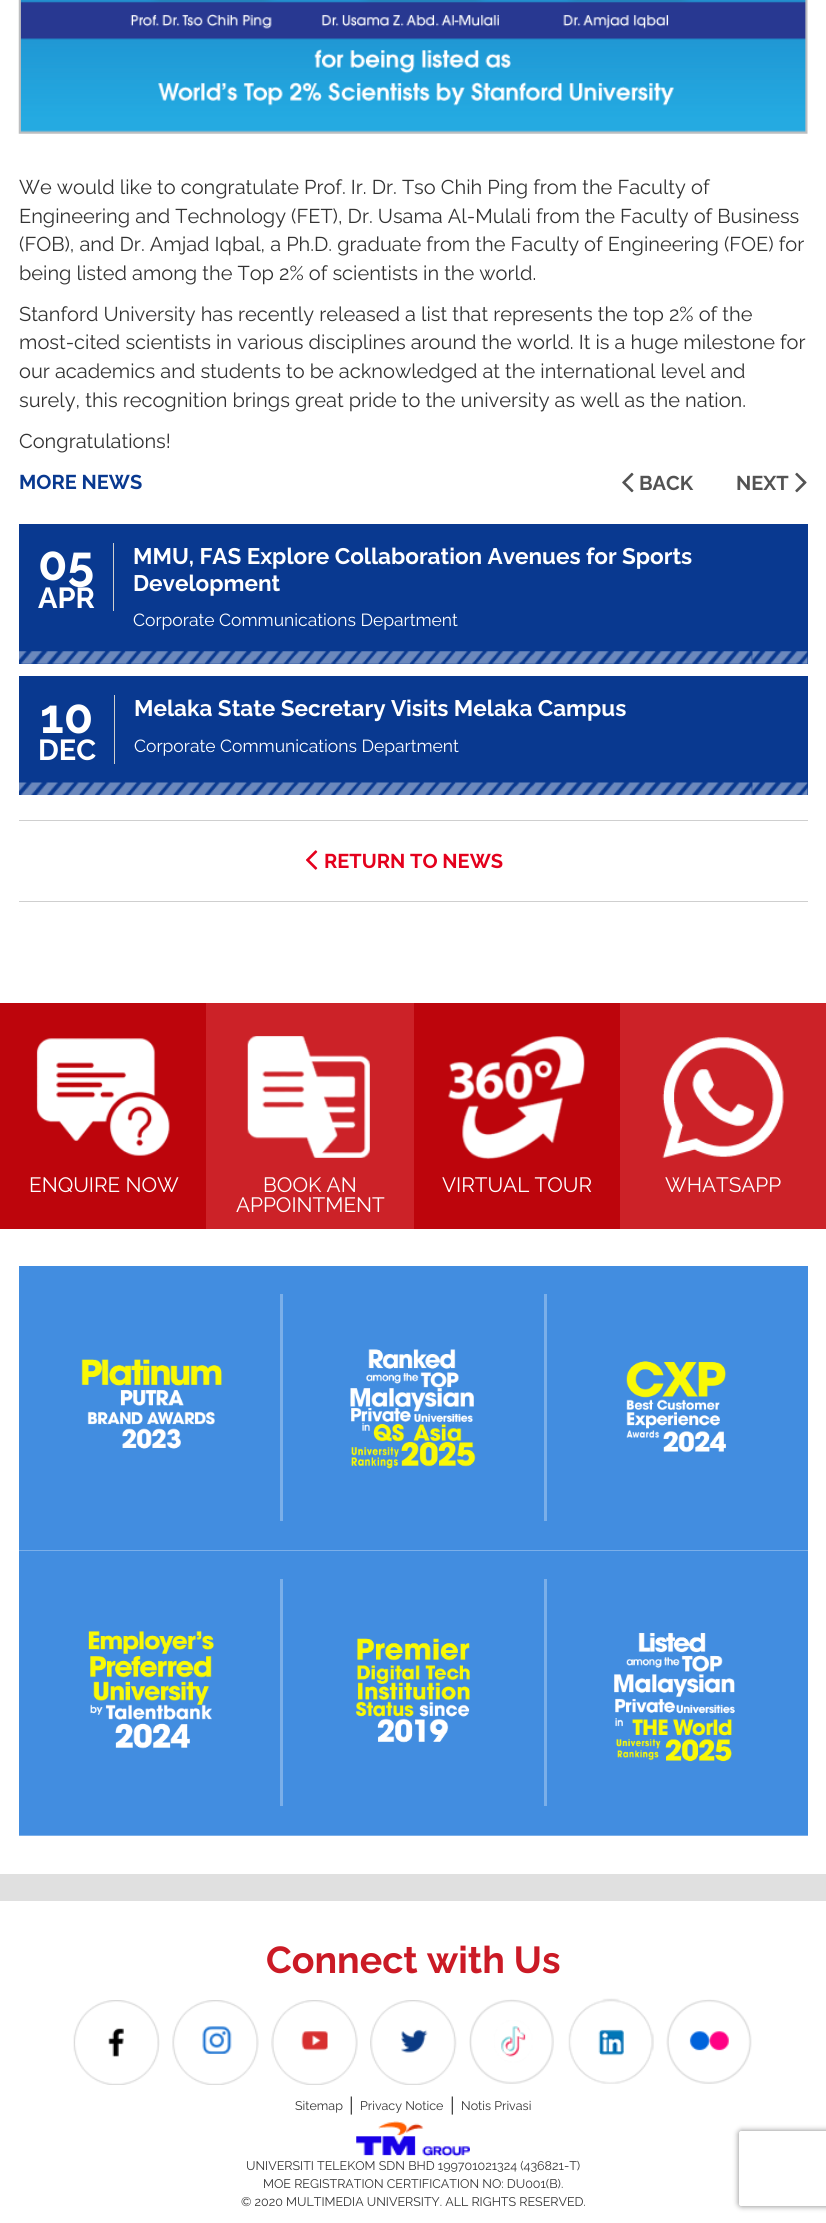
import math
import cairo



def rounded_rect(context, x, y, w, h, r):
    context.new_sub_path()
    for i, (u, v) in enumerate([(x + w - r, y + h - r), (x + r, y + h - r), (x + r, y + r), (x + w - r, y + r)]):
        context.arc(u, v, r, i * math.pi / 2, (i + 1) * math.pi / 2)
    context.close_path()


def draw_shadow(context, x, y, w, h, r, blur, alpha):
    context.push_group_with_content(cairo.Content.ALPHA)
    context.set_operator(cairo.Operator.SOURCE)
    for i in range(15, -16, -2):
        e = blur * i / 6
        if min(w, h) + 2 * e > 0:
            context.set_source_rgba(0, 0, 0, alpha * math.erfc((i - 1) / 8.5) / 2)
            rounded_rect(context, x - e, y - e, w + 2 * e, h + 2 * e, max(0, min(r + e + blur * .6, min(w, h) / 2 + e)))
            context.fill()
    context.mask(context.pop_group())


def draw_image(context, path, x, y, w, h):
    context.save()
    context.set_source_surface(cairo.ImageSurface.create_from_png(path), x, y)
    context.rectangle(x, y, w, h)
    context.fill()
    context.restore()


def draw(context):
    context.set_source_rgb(1, 1, 1)
    context.paint()
    draw_image(context, "images/1.png", 18, 0, 790, 134)
    draw_image(context, "images/2.png", 622, 472, 12, 21)
    draw_image(context, "images/3.png", 795, 472, 12, 21)
    context.set_source_rgb(9 / 255, 57 / 255, 144 / 255)
    context.rectangle(19, 524, 789, 140)
    context.fill()
    draw_image(context, "images/4.png", 19, 651, 789, 13)
    context.set_source_rgb(207 / 255, 207 / 255, 207 / 255)
    context.rectangle(113, 543, 1, 68)
    context.fill()
    context.set_source_rgb(9 / 255, 57 / 255, 144 / 255)
    context.rectangle(19, 676, 789, 119)
    context.fill()
    draw_image(context, "images/5.png", 19, 782, 789, 13)
    context.set_source_rgb(207 / 255, 207 / 255, 207 / 255)
    context.rectangle(114, 695, 1, 69)
    context.fill()
    context.rectangle(19, 820, 789, 1)
    context.fill()
    draw_image(context, "images/6.png", 306, 850, 12, 20)
    context.rectangle(19, 901, 789, 1)
    context.fill()
    context.set_source_rgb(189 / 255, 5 / 255, 12 / 255)
    context.rectangle(0, 1003, 206, 226)
    context.fill()
    draw_image(context, "images/7.png", 36, 1038, 134, 118)
    context.set_source_rgb(204 / 255, 34 / 255, 40 / 255)
    context.rectangle(206, 1003, 208, 226)
    context.fill()
    draw_image(context, "images/8.png", 247, 1036, 123, 122)
    context.set_source_rgb(189 / 255, 5 / 255, 12 / 255)
    context.rectangle(414, 1003, 206, 226)
    context.fill()
    draw_image(context, "images/9.png", 448, 1036, 137, 124)
    context.set_source_rgb(204 / 255, 34 / 255, 40 / 255)
    context.rectangle(620, 1003, 206, 226)
    context.fill()
    draw_image(context, "images/10.png", 662, 1037, 122, 121)
    context.set_source_rgb(66 / 255, 141 / 255, 224 / 255)
    context.rectangle(19, 1266, 789, 284)
    context.fill()
    context.set_source_rgb(123 / 255, 175 / 255, 233 / 255)
    context.rectangle(19, 1550, 789, 1)
    context.fill()
    draw_image(context, "images/11.png", 81, 1359, 141, 90)
    context.rectangle(280, 1294, 3, 227)
    context.fill()
    draw_image(context, "images/12.png", 350, 1349, 126, 120)
    context.rectangle(544, 1294, 3, 227)
    context.fill()
    draw_image(context, "images/13.png", 626, 1361, 100, 92)
    context.set_source_rgb(66 / 255, 141 / 255, 224 / 255)
    context.rectangle(19, 1551, 789, 284)
    context.fill()
    context.set_source_rgb(123 / 255, 175 / 255, 233 / 255)
    context.rectangle(19, 1835, 789, 1)
    context.fill()
    draw_image(context, "images/14.png", 88, 1631, 126, 118)
    context.rectangle(280, 1579, 3, 227)
    context.fill()
    draw_image(context, "images/15.png", 356, 1638, 114, 105)
    context.rectangle(544, 1579, 3, 227)
    context.fill()
    draw_image(context, "images/16.png", 614, 1632, 121, 130)
    context.set_source_rgb(224 / 255, 224 / 255, 224 / 255)
    context.rectangle(0, 1874, 826, 27)
    context.fill()
    draw_image(context, "images/17.png", 73, 2000, 87, 85)
    draw_image(context, "images/18.png", 172, 2000, 87, 85)
    draw_image(context, "images/19.png", 271, 2000, 87, 85)
    draw_image(context, "images/20.png", 370, 2000, 87, 85)
    draw_image(context, "images/21.png", 469, 1999, 85, 85)
    draw_image(context, "images/22.png", 568, 1998, 86, 86)
    draw_image(context, "images/23.png", 666, 1999, 86, 85)
    draw_image(context, "images/24.png", 356, 2121, 114, 36)
    context.save()
    context.set_fill_rule(cairo.FillRule.EVEN_ODD)
    context.new_path()
    context.move_to(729, 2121)
    context.line_to(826, 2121)
    context.line_to(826, 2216)
    context.line_to(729, 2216)
    context.close_path()
    context.move_to(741.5, 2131)
    context.line_to(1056.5, 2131)
    context.curve_to(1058, 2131, 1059, 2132, 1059, 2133.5)
    context.line_to(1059, 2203.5)
    context.curve_to(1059, 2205, 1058, 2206, 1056.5, 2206)
    context.line_to(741.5, 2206)
    context.curve_to(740, 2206, 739, 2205, 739, 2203.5)
    context.line_to(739, 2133.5)
    context.curve_to(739, 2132, 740, 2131, 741.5, 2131)
    context.close_path()
    context.clip()
    context.set_source_rgb(128 / 255, 128 / 255, 128 / 255)
    draw_shadow(context, 739, 2131, 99, 75, 2.5, 3, 1)
    context.restore()
    context.select_font_face("Raleway")
    context.set_font_size(20)
    context.set_source_rgb(51 / 255, 51 / 255, 51 / 255)
    context.move_to(19, 194)
    context.show_text("We would like to congratulate Prof. Ir. Dr. Tso Chih Ping from the Faculty of")
    context.move_to(19, 223)
    context.show_text("Engineering and Technology (FET), Dr. Usama Al-Mulali from the Faculty of Business")
    context.move_to(19, 251)
    context.show_text("(FOB), and Dr. Amjad Iqbal, a Ph.D. graduate from the Faculty of Engineering (FOE) for")
    context.move_to(19, 280)
    context.show_text("being listed among the Top 2% of scientists in the world.")
    context.move_to(19, 321)
    context.show_text("Stanford University has recently released a list that represents the top 2% of the")
    context.move_to(19, 349)
    context.show_text("most-cited scientists in various disciplines around the world. It is a huge milestone for")
    context.move_to(19, 378)
    context.show_text("our academics and students to be acknowledged at the international level and")
    context.move_to(19, 407)
    context.show_text("surely, this recognition brings great pride to the university as well as the nation.")
    context.move_to(19, 448)
    context.show_text("Congratulations!")
    context.select_font_face("Raleway", cairo.FontSlant.NORMAL, cairo.FontWeight.BOLD)
    context.set_source_rgb(9 / 255, 57 / 255, 144 / 255)
    context.move_to(19, 489)
    context.show_text("MORE NEWS")
    context.set_source_rgb(83 / 255, 83 / 255, 83 / 255)
    context.move_to(639, 490)
    context.show_text("BACK")
    context.move_to(736, 490)
    context.show_text("NEXT")
    context.set_font_size(48)
    context.set_source_rgb(1, 1, 1)
    context.move_to(38, 580)
    context.show_text("05")
    context.set_font_size(29)
    context.move_to(38, 608)
    context.show_text("APR")
    context.set_font_size(22.5)
    context.move_to(133, 564)
    context.show_text("MMU, FAS Explore Collaboration Avenues for Sports")
    context.move_to(133, 591)
    context.show_text("Development")
    context.select_font_face("Raleway")
    context.set_font_size(17.5)
    context.move_to(133, 626)
    context.show_text("Corporate Communications Department")
    context.select_font_face("Raleway", cairo.FontSlant.NORMAL, cairo.FontWeight.BOLD)
    context.set_font_size(48)
    context.move_to(40, 733)
    context.show_text("10")
    context.set_font_size(29)
    context.move_to(38, 760)
    context.show_text("DEC")
    context.set_font_size(22.5)
    context.move_to(134, 716)
    context.show_text("Melaka State Secretary Visits Melaka Campus")
    context.select_font_face("Raleway")
    context.set_font_size(17.5)
    context.move_to(134, 752)
    context.show_text("Corporate Communications Department")
    context.select_font_face("Raleway", cairo.FontSlant.NORMAL, cairo.FontWeight.BOLD)
    context.set_font_size(20)
    context.set_source_rgb(228 / 255, 0, 28 / 255)
    context.move_to(324, 868)
    context.show_text("RETURN TO NEWS")
    context.select_font_face("Raleway")
    context.set_font_size(20.75)
    context.set_source_rgb(1, 1, 1)
    context.move_to(29, 1192)
    context.show_text("ENQUIRE NOW")
    context.move_to(263, 1192)
    context.show_text("BOOK AN")
    context.move_to(236, 1212)
    context.show_text("APPOINTMENT")
    context.move_to(442, 1192)
    context.show_text("VIRTUAL TOUR")
    context.move_to(665, 1192)
    context.show_text("WHATSAPP")
    context.select_font_face("Raleway", cairo.FontSlant.NORMAL, cairo.FontWeight.BOLD)
    context.set_font_size(37.5)
    context.set_source_rgb(203 / 255, 26 / 255, 37 / 255)
    context.move_to(266, 1973)
    context.show_text("Connect with Us")
    context.select_font_face("Raleway")
    context.set_font_size(12.5)
    context.set_source_rgb(51 / 255, 51 / 255, 51 / 255)
    context.move_to(295, 2110)
    context.show_text("Sitemap")
    context.set_font_size(20)
    context.move_to(349, 2112)
    context.show_text("|")
    context.set_font_size(12.5)
    context.move_to(360, 2110)
    context.show_text("Privacy Notice")
    context.set_font_size(20)
    context.move_to(450, 2112)
    context.show_text("|")
    context.set_font_size(12.5)
    context.move_to(461, 2110)
    context.show_text("Notis Privasi")
    context.move_to(246, 2170)
    context.show_text("UNIVERSITI TELEKOM SDN BHD 199701021324 (436821-T)")
    context.move_to(263, 2188)
    context.show_text("MOE REGISTRATION CERTIFICATION NO: DU001(B).")
    context.move_to(241, 2206)
    context.show_text("© 2020 MULTIMEDIA UNIVERSITY. ALL RIGHTS RESERVED.")


surface = cairo.ImageSurface(cairo.Format.RGB24, 826, 2223)
context = cairo.Context(surface)
options = cairo.FontOptions()
options.set_hint_metrics(cairo.HintMetrics.OFF)
options.set_hint_style(cairo.HintStyle.NONE)
context.set_font_options(options)
context.set_miter_limit(4)
draw(context)
surface.write_to_png("out.png")
